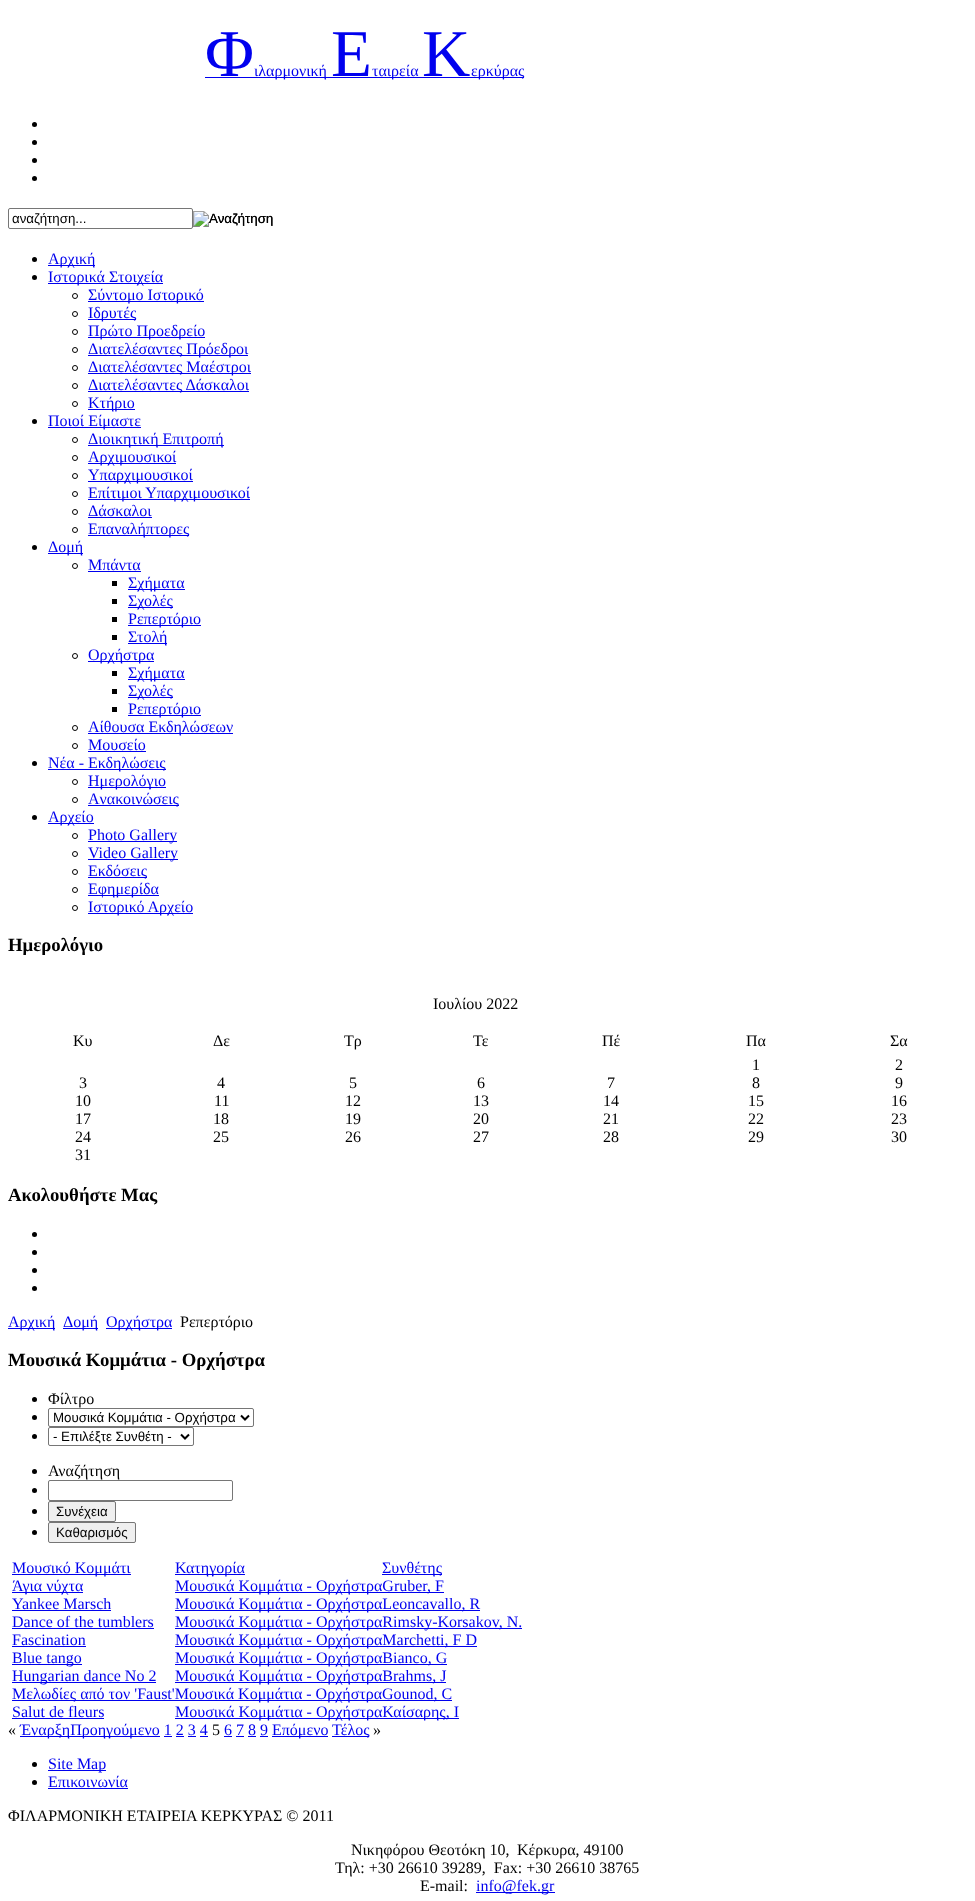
(async () => {
    const canvas = document.querySelector("canvas");
    canvas.width = 975;
    canvas.height = 1901;
    const context = canvas.getContext("2d");
    context.miterLimit = 4;
    context.fontKerning = "normal";
    function write(s, x, y, font, color) {
        context.font = font;
        context.fillStyle = color;
        context.fillText(s, x, y);
    }
    function block(x, y, w, h, color) {
        context.fillStyle = color;
        context.fillRect(x, y, w, h);
    }
    async function photo(src, x, y, w, h) {
        const img = new Image();
        img.src = src;
        await img.decode();
        context.drawImage(img, x, y, w, h);
    }

    block(0, 0, 975, 1901, "rgb(255, 255, 255)");
    write("Φ", 205, 76, "67px Liberation Serif", "rgb(0, 0, 238)");
    block(205, 77, 319, 1, "rgb(0, 0, 238)");
    write("ιλαρμονική", 254, 76, "16px Liberation Serif", "rgb(0, 0, 238)");
    write("Ε", 331, 76, "67px Liberation Serif", "rgb(0, 0, 238)");
    write("ταιρεία", 372, 76, "16px Liberation Serif", "rgb(0, 0, 238)");
    write("Κ", 422, 76, "67px Liberation Serif", "rgb(0, 0, 238)");
    write("ερκύρας", 471, 76, "16px Liberation Serif", "rgb(0, 0, 238)");
    context.fillStyle = "rgb(0, 0, 0)";
    context.beginPath();
    context.arc(34.5, 124.5, 2.5, 0, Math.PI * 2);
    context.fill();
    context.beginPath();
    context.arc(34.5, 142.5, 2.5, 0, Math.PI * 2);
    context.fill();
    context.beginPath();
    context.arc(34.5, 160.5, 2.5, 0, Math.PI * 2);
    context.fill();
    context.beginPath();
    context.arc(34.5, 178.5, 2.5, 0, Math.PI * 2);
    context.fill();
    context.beginPath();
    context.roundRect(8.5, 208.5, 184, 20, 1.5);
    context.strokeStyle = "rgb(118, 118, 118)";
    context.stroke();
    write("αναζήτηση...", 12, 223, "13.3px Liberation Sans", "rgb(0, 0, 0)");
    await photo("media/1.png", 193, 211, 80, 16);
    write("Αναζήτηση", 209, 223, "13.3px Liberation Sans", "rgb(0, 0, 0)");
    context.beginPath();
    context.arc(34.5, 259.5, 2.5, 0, Math.PI * 2);
    context.fill();
    block(48, 265, 47, 1, "rgb(0, 0, 238)");
    write("Αρχική", 48, 264, "16px Liberation Serif", "rgb(0, 0, 238)");
    context.fillStyle = "rgb(0, 0, 0)";
    context.beginPath();
    context.arc(34.5, 277.5, 2.5, 0, Math.PI * 2);
    context.fill();
    block(48, 283, 115, 1, "rgb(0, 0, 238)");
    write("Ιστορικά Στοιχεία", 48, 282, "16px Liberation Serif", "rgb(0, 0, 238)");
    context.beginPath();
    context.arc(75, 296, 2.5, 0, Math.PI * 2);
    context.strokeStyle = "rgb(0, 0, 0)";
    context.stroke();
    block(88, 301, 116, 1, "rgb(0, 0, 238)");
    write("Σύντομο Ιστορικό", 88, 300, "16px Liberation Serif", "rgb(0, 0, 238)");
    context.beginPath();
    context.arc(75, 314, 2.5, 0, Math.PI * 2);
    context.stroke();
    block(88, 319, 48, 1, "rgb(0, 0, 238)");
    write("Ιδρυτές", 88, 318, "16px Liberation Serif", "rgb(0, 0, 238)");
    context.beginPath();
    context.arc(75, 332, 2.5, 0, Math.PI * 2);
    context.stroke();
    block(88, 337, 117, 1, "rgb(0, 0, 238)");
    write("Πρώτο Προεδρείο", 88, 336, "16px Liberation Serif", "rgb(0, 0, 238)");
    context.beginPath();
    context.arc(75, 350, 2.5, 0, Math.PI * 2);
    context.stroke();
    block(88, 355, 160, 1, "rgb(0, 0, 238)");
    write("Διατελέσαντες Πρόεδροι", 88, 354, "16px Liberation Serif", "rgb(0, 0, 238)");
    context.beginPath();
    context.arc(75, 368, 2.5, 0, Math.PI * 2);
    context.stroke();
    block(88, 373, 163, 1, "rgb(0, 0, 238)");
    write("Διατελέσαντες Μαέστροι", 88, 372, "16px Liberation Serif", "rgb(0, 0, 238)");
    context.beginPath();
    context.arc(75, 386, 2.5, 0, Math.PI * 2);
    context.stroke();
    block(88, 391, 161, 1, "rgb(0, 0, 238)");
    write("Διατελέσαντες Δάσκαλοι", 88, 390, "16px Liberation Serif", "rgb(0, 0, 238)");
    context.beginPath();
    context.arc(75, 404, 2.5, 0, Math.PI * 2);
    context.stroke();
    block(88, 409, 47, 1, "rgb(0, 0, 238)");
    write("Κτήριο", 88, 408, "16px Liberation Serif", "rgb(0, 0, 238)");
    context.fillStyle = "rgb(0, 0, 0)";
    context.beginPath();
    context.arc(34.5, 421.5, 2.5, 0, Math.PI * 2);
    context.fill();
    block(48, 427, 93, 1, "rgb(0, 0, 238)");
    write("Ποιοί Είμαστε", 48, 426, "16px Liberation Serif", "rgb(0, 0, 238)");
    context.beginPath();
    context.arc(75, 440, 2.5, 0, Math.PI * 2);
    context.stroke();
    block(88, 445, 136, 1, "rgb(0, 0, 238)");
    write("Διοικητική Επιτροπή", 88, 444, "16px Liberation Serif", "rgb(0, 0, 238)");
    context.beginPath();
    context.arc(75, 458, 2.5, 0, Math.PI * 2);
    context.stroke();
    block(88, 463, 88, 1, "rgb(0, 0, 238)");
    write("Aρχιμουσικοί", 88, 462, "16px Liberation Serif", "rgb(0, 0, 238)");
    context.beginPath();
    context.arc(75, 476, 2.5, 0, Math.PI * 2);
    context.stroke();
    block(88, 481, 105, 1, "rgb(0, 0, 238)");
    write("Υπαρχιμουσικοί", 88, 480, "16px Liberation Serif", "rgb(0, 0, 238)");
    context.beginPath();
    context.arc(75, 494, 2.5, 0, Math.PI * 2);
    context.stroke();
    block(88, 499, 162, 1, "rgb(0, 0, 238)");
    write("Επίτιμοι Υπαρχιμουσικοί", 88, 498, "16px Liberation Serif", "rgb(0, 0, 238)");
    context.beginPath();
    context.arc(75, 512, 2.5, 0, Math.PI * 2);
    context.stroke();
    write("Δάσκαλοι", 88, 516, "16px Liberation Serif", "rgb(0, 0, 238)");
    block(88, 517, 64, 1, "rgb(0, 0, 238)");
    context.beginPath();
    context.arc(75, 530, 2.5, 0, Math.PI * 2);
    context.stroke();
    block(88, 535, 101, 1, "rgb(0, 0, 238)");
    write("Επαναλήπτορες", 88, 534, "16px Liberation Serif", "rgb(0, 0, 238)");
    context.fillStyle = "rgb(0, 0, 0)";
    context.beginPath();
    context.arc(34.5, 547.5, 2.5, 0, Math.PI * 2);
    context.fill();
    block(48, 553, 35, 1, "rgb(0, 0, 238)");
    write("Δομή", 48, 552, "16px Liberation Serif", "rgb(0, 0, 238)");
    context.beginPath();
    context.arc(75, 566, 2.5, 0, Math.PI * 2);
    context.stroke();
    write("Μπάντα", 88, 570, "16px Liberation Serif", "rgb(0, 0, 238)");
    block(88, 571, 53, 1, "rgb(0, 0, 238)");
    block(112, 581, 5, 5, "rgb(0, 0, 0)");
    block(128, 589, 57, 1, "rgb(0, 0, 238)");
    write("Σχήματα", 128, 588, "16px Liberation Serif", "rgb(0, 0, 238)");
    block(112, 599, 5, 5, "rgb(0, 0, 0)");
    block(128, 607, 45, 1, "rgb(0, 0, 238)");
    write("Σχολές", 128, 606, "16px Liberation Serif", "rgb(0, 0, 238)");
    block(112, 617, 5, 5, "rgb(0, 0, 0)");
    block(128, 625, 73, 1, "rgb(0, 0, 238)");
    write("Ρεπερτόριο", 128, 624, "16px Liberation Serif", "rgb(0, 0, 238)");
    block(112, 635, 5, 5, "rgb(0, 0, 0)");
    block(128, 643, 39, 1, "rgb(0, 0, 238)");
    write("Στολή", 128, 642, "16px Liberation Serif", "rgb(0, 0, 238)");
    context.beginPath();
    context.arc(75, 656, 2.5, 0, Math.PI * 2);
    context.stroke();
    block(88, 661, 66, 1, "rgb(0, 0, 238)");
    write("Ορχήστρα", 88, 660, "16px Liberation Serif", "rgb(0, 0, 238)");
    block(112, 671, 5, 5, "rgb(0, 0, 0)");
    block(128, 679, 57, 1, "rgb(0, 0, 238)");
    write("Σχήματα", 128, 678, "16px Liberation Serif", "rgb(0, 0, 238)");
    block(112, 689, 5, 5, "rgb(0, 0, 0)");
    block(128, 697, 45, 1, "rgb(0, 0, 238)");
    write("Σχολές", 128, 696, "16px Liberation Serif", "rgb(0, 0, 238)");
    block(112, 707, 5, 5, "rgb(0, 0, 0)");
    block(128, 715, 73, 1, "rgb(0, 0, 238)");
    write("Ρεπερτόριο", 128, 714, "16px Liberation Serif", "rgb(0, 0, 238)");
    context.beginPath();
    context.arc(75, 728, 2.5, 0, Math.PI * 2);
    context.stroke();
    block(88, 733, 145, 1, "rgb(0, 0, 238)");
    write("Aίθουσα Εκδηλώσεων", 88, 732, "16px Liberation Serif", "rgb(0, 0, 238)");
    context.beginPath();
    context.arc(75, 746, 2.5, 0, Math.PI * 2);
    context.stroke();
    write("Μουσείο", 88, 750, "16px Liberation Serif", "rgb(0, 0, 238)");
    block(88, 751, 58, 1, "rgb(0, 0, 238)");
    context.fillStyle = "rgb(0, 0, 0)";
    context.beginPath();
    context.arc(34.5, 763.5, 2.5, 0, Math.PI * 2);
    context.fill();
    block(48, 769, 118, 1, "rgb(0, 0, 238)");
    write("Νέα - Εκδηλώσεις", 48, 768, "16px Liberation Serif", "rgb(0, 0, 238)");
    context.beginPath();
    context.arc(75, 782, 2.5, 0, Math.PI * 2);
    context.stroke();
    block(88, 787, 78, 1, "rgb(0, 0, 238)");
    write("Ημερολόγιο", 88, 786, "16px Liberation Serif", "rgb(0, 0, 238)");
    context.beginPath();
    context.arc(75, 800, 2.5, 0, Math.PI * 2);
    context.stroke();
    block(88, 805, 91, 1, "rgb(0, 0, 238)");
    write("Aνακοινώσεις", 88, 804, "16px Liberation Serif", "rgb(0, 0, 238)");
    context.fillStyle = "rgb(0, 0, 0)";
    context.beginPath();
    context.arc(34.5, 817.5, 2.5, 0, Math.PI * 2);
    context.fill();
    block(48, 823, 46, 1, "rgb(0, 0, 238)");
    write("Αρχείο", 48, 822, "16px Liberation Serif", "rgb(0, 0, 238)");
    context.beginPath();
    context.arc(75, 836, 2.5, 0, Math.PI * 2);
    context.stroke();
    block(88, 841, 89, 1, "rgb(0, 0, 238)");
    write("Photo Gallery", 88, 840, "16px Liberation Serif", "rgb(0, 0, 238)");
    context.beginPath();
    context.arc(75, 854, 2.5, 0, Math.PI * 2);
    context.stroke();
    block(88, 859, 90, 1, "rgb(0, 0, 238)");
    write("Video Gallery", 88, 858, "16px Liberation Serif", "rgb(0, 0, 238)");
    context.beginPath();
    context.arc(75, 872, 2.5, 0, Math.PI * 2);
    context.stroke();
    block(88, 877, 59, 1, "rgb(0, 0, 238)");
    write("Εκδόσεις", 88, 876, "16px Liberation Serif", "rgb(0, 0, 238)");
    context.beginPath();
    context.arc(75, 890, 2.5, 0, Math.PI * 2);
    context.stroke();
    block(88, 895, 71, 1, "rgb(0, 0, 238)");
    write("Εφημερίδα", 88, 894, "16px Liberation Serif", "rgb(0, 0, 238)");
    context.beginPath();
    context.arc(75, 908, 2.5, 0, Math.PI * 2);
    context.stroke();
    block(88, 913, 105, 1, "rgb(0, 0, 238)");
    write("Ιστορικό Αρχείο", 88, 912, "16px Liberation Serif", "rgb(0, 0, 238)");
    write("Ημερολόγιο", 8, 951, "bold 18.75px Liberation Serif", "rgb(0, 0, 0)");
    write("Ιουλίου 2022", 433, 1009, "16px Liberation Serif", "rgb(0, 0, 0)");
    write("Κυ", 73, 1046, "16px Liberation Serif", "rgb(0, 0, 0)");
    write("Δε", 213, 1046, "16px Liberation Serif", "rgb(0, 0, 0)");
    write("Τρ", 344, 1046, "16px Liberation Serif", "rgb(0, 0, 0)");
    write("Τε", 473, 1046, "16px Liberation Serif", "rgb(0, 0, 0)");
    write("Πέ", 602, 1046, "16px Liberation Serif", "rgb(0, 0, 0)");
    write("Πα", 746, 1046, "16px Liberation Serif", "rgb(0, 0, 0)");
    write("Σα", 890, 1046, "16px Liberation Serif", "rgb(0, 0, 0)");
    write("1", 752, 1070, "16px Liberation Serif", "rgb(0, 0, 0)");
    write("2", 895, 1070, "16px Liberation Serif", "rgb(0, 0, 0)");
    write("3", 79, 1088, "16px Liberation Serif", "rgb(0, 0, 0)");
    write("4", 217, 1088, "16px Liberation Serif", "rgb(0, 0, 0)");
    write("5", 349, 1088, "16px Liberation Serif", "rgb(0, 0, 0)");
    write("6", 477, 1088, "16px Liberation Serif", "rgb(0, 0, 0)");
    write("7", 607, 1088, "16px Liberation Serif", "rgb(0, 0, 0)");
    write("8", 752, 1088, "16px Liberation Serif", "rgb(0, 0, 0)");
    write("9", 895, 1088, "16px Liberation Serif", "rgb(0, 0, 0)");
    write("10", 75, 1106, "16px Liberation Serif", "rgb(0, 0, 0)");
    write("11", 214, 1106, "16px Liberation Serif", "rgb(0, 0, 0)");
    write("12", 345, 1106, "16px Liberation Serif", "rgb(0, 0, 0)");
    write("13", 473, 1106, "16px Liberation Serif", "rgb(0, 0, 0)");
    write("14", 603, 1106, "16px Liberation Serif", "rgb(0, 0, 0)");
    write("15", 748, 1106, "16px Liberation Serif", "rgb(0, 0, 0)");
    write("16", 891, 1106, "16px Liberation Serif", "rgb(0, 0, 0)");
    write("17", 75, 1124, "16px Liberation Serif", "rgb(0, 0, 0)");
    write("18", 213, 1124, "16px Liberation Serif", "rgb(0, 0, 0)");
    write("19", 345, 1124, "16px Liberation Serif", "rgb(0, 0, 0)");
    write("20", 473, 1124, "16px Liberation Serif", "rgb(0, 0, 0)");
    write("21", 603, 1124, "16px Liberation Serif", "rgb(0, 0, 0)");
    write("22", 748, 1124, "16px Liberation Serif", "rgb(0, 0, 0)");
    write("23", 891, 1124, "16px Liberation Serif", "rgb(0, 0, 0)");
    write("24", 75, 1142, "16px Liberation Serif", "rgb(0, 0, 0)");
    write("25", 213, 1142, "16px Liberation Serif", "rgb(0, 0, 0)");
    write("26", 345, 1142, "16px Liberation Serif", "rgb(0, 0, 0)");
    write("27", 473, 1142, "16px Liberation Serif", "rgb(0, 0, 0)");
    write("28", 603, 1142, "16px Liberation Serif", "rgb(0, 0, 0)");
    write("29", 748, 1142, "16px Liberation Serif", "rgb(0, 0, 0)");
    write("30", 891, 1142, "16px Liberation Serif", "rgb(0, 0, 0)");
    write("31", 75, 1160, "16px Liberation Serif", "rgb(0, 0, 0)");
    write("Ακολουθήστε Μας", 8, 1201, "bold 18.75px Liberation Serif", "rgb(0, 0, 0)");
    context.beginPath();
    context.arc(34.5, 1234.5, 2.5, 0, Math.PI * 2);
    context.fill();
    context.beginPath();
    context.arc(34.5, 1252.5, 2.5, 0, Math.PI * 2);
    context.fill();
    context.beginPath();
    context.arc(34.5, 1270.5, 2.5, 0, Math.PI * 2);
    context.fill();
    context.beginPath();
    context.arc(34.5, 1288.5, 2.5, 0, Math.PI * 2);
    context.fill();
    block(8, 1328, 47, 1, "rgb(0, 0, 238)");
    write("Αρχική", 8, 1327, "16px Liberation Serif", "rgb(0, 0, 238)");
    block(63, 1328, 35, 1, "rgb(0, 0, 238)");
    write("Δομή", 63, 1327, "16px Liberation Serif", "rgb(0, 0, 238)");
    block(106, 1328, 66, 1, "rgb(0, 0, 238)");
    write("Ορχήστρα", 106, 1327, "16px Liberation Serif", "rgb(0, 0, 238)");
    write("Ρεπερτόριο", 180, 1327, "16px Liberation Serif", "rgb(0, 0, 0)");
    write("Μουσικά Κομμάτια - Ορχήστρα", 8, 1366, "bold 18.75px Liberation Serif", "rgb(0, 0, 0)");
    context.beginPath();
    context.arc(34.5, 1399.5, 2.5, 0, Math.PI * 2);
    context.fill();
    write("Φίλτρο", 48, 1404, "16px Liberation Serif", "rgb(0, 0, 0)");
    context.beginPath();
    context.arc(34.5, 1417.5, 2.5, 0, Math.PI * 2);
    context.fill();
    context.beginPath();
    context.roundRect(48.5, 1408.5, 205, 18, 1.5);
    context.strokeStyle = "rgb(118, 118, 118)";
    context.stroke();
    context.beginPath();
    context.moveTo(241, 1415.5);
    context.lineTo(245, 1419.5);
    context.lineTo(249, 1415.5);
    context.strokeStyle = "rgb(0, 0, 0)";
    context.lineWidth = 2;
    context.stroke();
    write("Μουσικά Κομμάτια - Ορχήστρα", 53, 1422, "13.3px Liberation Sans", "rgb(0, 0, 0)");
    context.beginPath();
    context.arc(34.5, 1436.5, 2.5, 0, Math.PI * 2);
    context.fill();
    context.beginPath();
    context.roundRect(48.5, 1427.5, 145, 18, 1.5);
    context.strokeStyle = "rgb(118, 118, 118)";
    context.lineWidth = 1;
    context.stroke();
    context.beginPath();
    context.moveTo(181, 1434.5);
    context.lineTo(185, 1438.5);
    context.lineTo(189, 1434.5);
    context.strokeStyle = "rgb(0, 0, 0)";
    context.lineWidth = 2;
    context.stroke();
    write("- Επιλέξτε Συνθέτη -", 53, 1441, "13.3px Liberation Sans", "rgb(0, 0, 0)");
    context.beginPath();
    context.arc(34.5, 1471.5, 2.5, 0, Math.PI * 2);
    context.fill();
    write("Αναζήτηση", 48, 1476, "16px Liberation Serif", "rgb(0, 0, 0)");
    context.beginPath();
    context.arc(34.5, 1490.5, 2.5, 0, Math.PI * 2);
    context.fill();
    context.beginPath();
    context.roundRect(48.5, 1480.5, 184, 20, 1.5);
    context.strokeStyle = "rgb(118, 118, 118)";
    context.lineWidth = 1;
    context.stroke();
    context.beginPath();
    context.arc(34.5, 1511.5, 2.5, 0, Math.PI * 2);
    context.fill();
    context.fillStyle = "rgb(239, 239, 239)";
    context.beginPath();
    context.roundRect(48.5, 1501.5, 67, 20, 1.5);
    context.fill();
    context.stroke();
    write("Συνέχεια", 56, 1516, "13.3px Liberation Sans", "rgb(0, 0, 0)");
    context.beginPath();
    context.arc(34.5, 1532.5, 2.5, 0, Math.PI * 2);
    context.fill();
    context.fillStyle = "rgb(239, 239, 239)";
    context.beginPath();
    context.roundRect(48.5, 1522.5, 87, 20, 1.5);
    context.fill();
    context.stroke();
    write("Καθαρισμός", 56, 1537, "13.3px Liberation Sans", "rgb(0, 0, 0)");
    block(12, 1574, 119, 1, "rgb(0, 0, 238)");
    write("Μουσικό Κομμάτι", 12, 1573, "16px Liberation Serif", "rgb(0, 0, 238)");
    block(175, 1574, 70, 1, "rgb(0, 0, 238)");
    write("Κατηγορία", 175, 1573, "16px Liberation Serif", "rgb(0, 0, 238)");
    block(382, 1574, 60, 1, "rgb(0, 0, 238)");
    write("Συνθέτης", 382, 1573, "16px Liberation Serif", "rgb(0, 0, 238)");
    block(12, 1592, 71, 1, "rgb(0, 0, 238)");
    write("Άγια νύχτα", 12, 1591, "16px Liberation Serif", "rgb(0, 0, 238)");
    block(175, 1592, 269, 1, "rgb(0, 0, 238)");
    write("Μουσικά Κομμάτια - ΟρχήστραGruber, F", 175, 1591, "16px Liberation Serif", "rgb(0, 0, 238)");
    write("Yankee Marsch", 12, 1609, "16px Liberation Serif", "rgb(0, 0, 238)");
    block(12, 1610, 99, 1, "rgb(0, 0, 238)");
    block(175, 1610, 305, 1, "rgb(0, 0, 238)");
    write("Μουσικά Κομμάτια - ΟρχήστραLeoncavallo, R", 175, 1609, "16px Liberation Serif", "rgb(0, 0, 238)");
    write("Dance of the tumblers", 12, 1627, "16px Liberation Serif", "rgb(0, 0, 238)");
    block(12, 1628, 142, 1, "rgb(0, 0, 238)");
    block(175, 1628, 347, 1, "rgb(0, 0, 238)");
    write("Μουσικά Κομμάτια - ΟρχήστραRimsky-Korsakov, N.", 175, 1627, "16px Liberation Serif", "rgb(0, 0, 238)");
    write("Fascination", 12, 1645, "16px Liberation Serif", "rgb(0, 0, 238)");
    block(12, 1646, 74, 1, "rgb(0, 0, 238)");
    block(175, 1646, 302, 1, "rgb(0, 0, 238)");
    write("Μουσικά Κομμάτια - ΟρχήστραMarchetti, F D", 175, 1645, "16px Liberation Serif", "rgb(0, 0, 238)");
    block(12, 1664, 70, 1, "rgb(0, 0, 238)");
    write("Blue tango", 12, 1663, "16px Liberation Serif", "rgb(0, 0, 238)");
    block(175, 1664, 272, 1, "rgb(0, 0, 238)");
    write("Μουσικά Κομμάτια - ΟρχήστραBianco, G", 175, 1663, "16px Liberation Serif", "rgb(0, 0, 238)");
    block(12, 1682, 144, 1, "rgb(0, 0, 238)");
    write("Hungarian dance No 2", 12, 1681, "16px Liberation Serif", "rgb(0, 0, 238)");
    block(175, 1682, 271, 1, "rgb(0, 0, 238)");
    write("Μουσικά Κομμάτια - ΟρχήστραBrahms, J", 175, 1681, "16px Liberation Serif", "rgb(0, 0, 238)");
    block(12, 1700, 440, 1, "rgb(0, 0, 238)");
    write("Μελωδίες από τον 'Faust'Μουσικά Κομμάτια - ΟρχήστραGounod, C", 12, 1699, "16px Liberation Serif", "rgb(0, 0, 238)");
    write("Salut de fleurs", 12, 1717, "16px Liberation Serif", "rgb(0, 0, 238)");
    block(12, 1718, 92, 1, "rgb(0, 0, 238)");
    block(175, 1718, 284, 1, "rgb(0, 0, 238)");
    write("Μουσικά Κομμάτια - ΟρχήστραΚαίσαρης, Ι", 175, 1717, "16px Liberation Serif", "rgb(0, 0, 238)");
    write("«", 8, 1735, "16px Liberation Serif", "rgb(0, 0, 0)");
    block(20, 1736, 140, 1, "rgb(0, 0, 238)");
    write("ΈναρξηΠροηγούμενο 1 2 3 4", 20, 1735, "16px Liberation Serif", "rgb(0, 0, 238)");
    write("5", 212, 1735, "16px Liberation Serif", "rgb(0, 0, 0)");
    write("6 7 8 9", 224, 1735, "16px Liberation Serif", "rgb(0, 0, 238)");
    block(224, 1736, 8, 1, "rgb(0, 0, 238)");
    block(272, 1736, 56, 1, "rgb(0, 0, 238)");
    write("Επόμενο", 272, 1735, "16px Liberation Serif", "rgb(0, 0, 238)");
    block(332, 1736, 37, 1, "rgb(0, 0, 238)");
    write("Τέλος", 332, 1735, "16px Liberation Serif", "rgb(0, 0, 238)");
    write("»", 373, 1735, "16px Liberation Serif", "rgb(0, 0, 0)");
    block(164, 1736, 8, 1, "rgb(0, 0, 238)");
    block(176, 1736, 8, 1, "rgb(0, 0, 238)");
    block(188, 1736, 8, 1, "rgb(0, 0, 238)");
    block(200, 1736, 8, 1, "rgb(0, 0, 238)");
    block(236, 1736, 8, 1, "rgb(0, 0, 238)");
    block(248, 1736, 8, 1, "rgb(0, 0, 238)");
    block(260, 1736, 8, 1, "rgb(0, 0, 238)");
    context.fillStyle = "rgb(0, 0, 0)";
    context.beginPath();
    context.arc(34.5, 1764.5, 2.5, 0, Math.PI * 2);
    context.fill();
    block(48, 1770, 58, 1, "rgb(0, 0, 238)");
    write("Site Map", 48, 1769, "16px Liberation Serif", "rgb(0, 0, 238)");
    context.fillStyle = "rgb(0, 0, 0)";
    context.beginPath();
    context.arc(34.5, 1782.5, 2.5, 0, Math.PI * 2);
    context.fill();
    write("Επικοινωνία", 48, 1787, "16px Liberation Serif", "rgb(0, 0, 238)");
    block(48, 1788, 80, 1, "rgb(0, 0, 238)");
    write("ΦΙΛΑΡΜΟΝΙΚΗ ΕΤΑΙΡΕΙΑ ΚΕΡΚΥΡΑΣ © 2011", 8, 1821, "16px Liberation Serif", "rgb(0, 0, 0)");
    write("Νικηφόρου Θεοτόκη 10,", 351, 1855, "16px Liberation Serif", "rgb(0, 0, 0)");
    write("Κέρκυρα, 49100", 517, 1855, "16px Liberation Serif", "rgb(0, 0, 0)");
    write("Τηλ: +30 26610 39289,  Fax: +30 26610 38765", 335, 1873, "16px Liberation Serif", "rgb(0, 0, 0)");
    write("E-mail:", 420, 1891, "16px Liberation Serif", "rgb(0, 0, 0)");
    block(476, 1892, 79, 1, "rgb(0, 0, 238)");
    write("info@fek.gr", 476, 1891, "16px Liberation Serif", "rgb(0, 0, 238)");
})();
